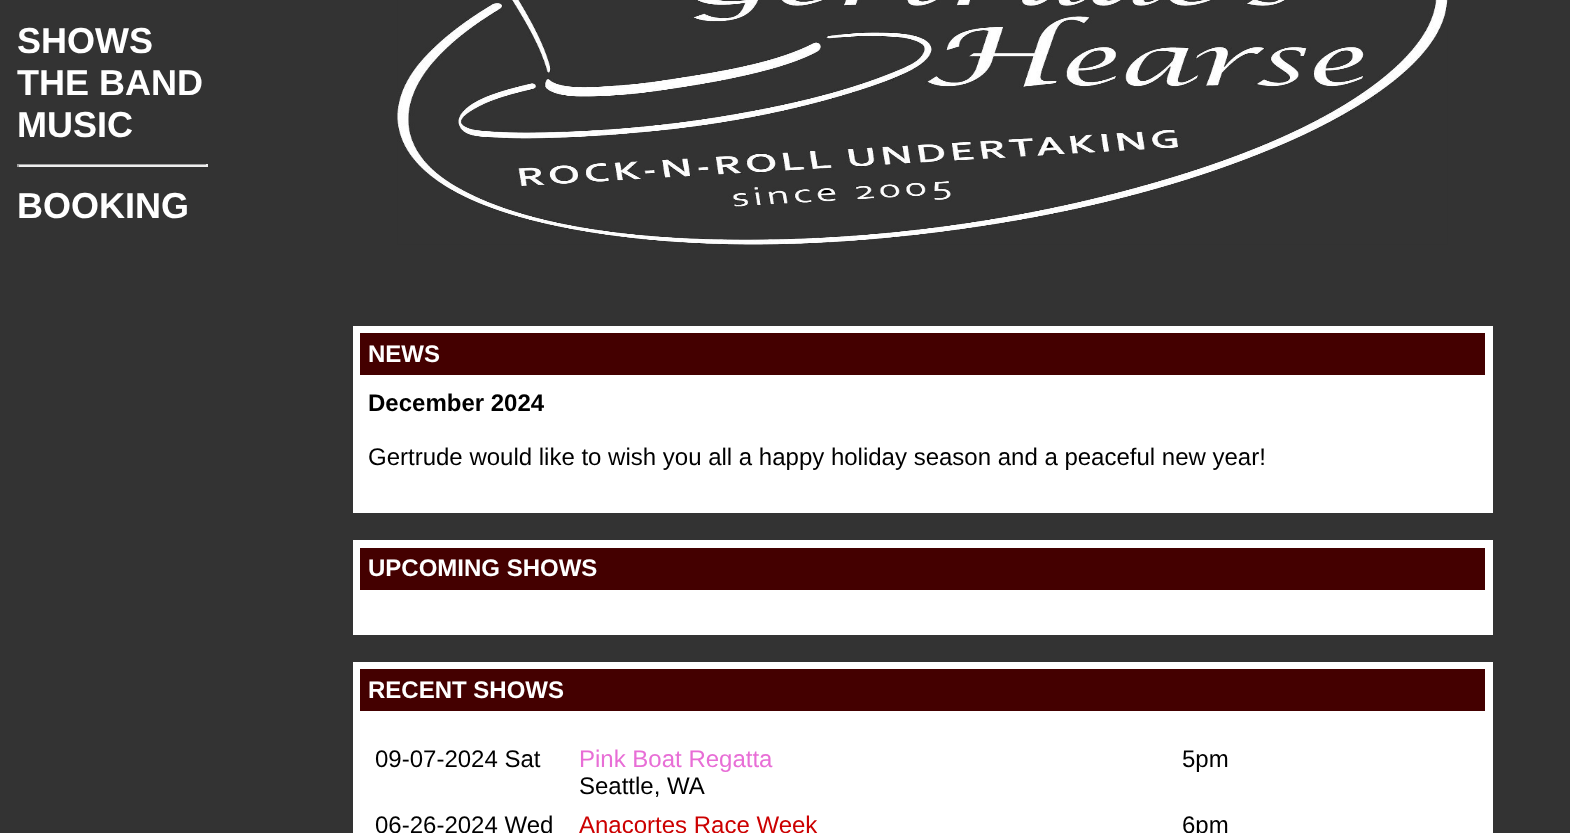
(async () => {
    const canvas = document.querySelector("canvas");
    canvas.width = 1570;
    canvas.height = 833;
    const context = canvas.getContext("2d");
    context.miterLimit = 4;
    context.fontKerning = "normal";
    function write(s, x, y, font, color) {
        context.font = font;
        context.fillStyle = color;
        context.fillText(s, x, y);
    }
    function block(x, y, w, h, color) {
        context.fillStyle = color;
        context.fillRect(x, y, w, h);
    }
    async function photo(src, x, y, w, h) {
        const img = new Image();
        img.src = src;
        await img.decode();
        context.drawImage(img, x, y, w, h);
    }

    block(0, 0, 1570, 833, "rgb(51, 51, 51)");
    write("SHOWS", 17, 53, "bold 36px Liberation Sans", "rgb(255, 255, 255)");
    write("THE BAND", 17, 95, "bold 36px Liberation Sans", "rgb(255, 255, 255)");
    write("MUSIC", 17, 137, "bold 36px Liberation Sans", "rgb(255, 255, 255)");
    block(17, 164, 190, 1, "rgb(159, 159, 159)");
    block(206, 164, 2, 3, "rgb(238, 238, 238)");
    block(17, 165, 190, 2, "rgb(238, 238, 238)");
    block(17, 164, 2, 3, "rgb(159, 159, 159)");
    write("BOOKING", 17, 218, "bold 36px Liberation Sans", "rgb(255, 255, 255)");
    await photo("media/1.png", 397, 0, 1051, 245);
    block(353, 326, 1140, 187, "rgb(255, 255, 255)");
    block(360, 333, 1125, 42, "rgb(68, 0, 0)");
    write("NEWS", 368, 362, "bold 24px Liberation Sans", "rgb(255, 255, 255)");
    write("December 2024", 368, 411, "bold 24px Liberation Sans", "rgb(0, 0, 0)");
    write("Gertrude would like to wish you all a happy holiday season and a peaceful new year!", 368, 465, "24px Liberation Sans", "rgb(0, 0, 0)");
    block(353, 540, 1140, 95, "rgb(255, 255, 255)");
    block(360, 548, 1125, 42, "rgb(68, 0, 0)");
    write("UPCOMING SHOWS", 368, 576, "bold 24px Liberation Sans", "rgb(255, 255, 255)");
    block(353, 662, 1140, 171, "rgb(255, 255, 255)");
    block(360, 669, 1125, 42, "rgb(68, 0, 0)");
    write("RECENT SHOWS", 368, 698, "bold 24px Liberation Sans", "rgb(255, 255, 255)");
    write("09-07-2024 Sat", 375, 767, "24px Liberation Sans", "rgb(0, 0, 0)");
    write("Pink Boat Regatta", 579, 767, "24px Liberation Sans", "rgb(232, 110, 214)");
    write("Seattle, WA", 579, 794, "24px Liberation Sans", "rgb(0, 0, 0)");
    write("5pm", 1182, 767, "24px Liberation Sans", "rgb(0, 0, 0)");
    write("06-26-2024 Wed", 375, 833, "24px Liberation Sans", "rgb(0, 0, 0)");
    write("Anacortes Race Week", 579, 833, "24px Liberation Sans", "rgb(204, 0, 0)");
    write("6pm", 1182, 833, "24px Liberation Sans", "rgb(0, 0, 0)");
})();
